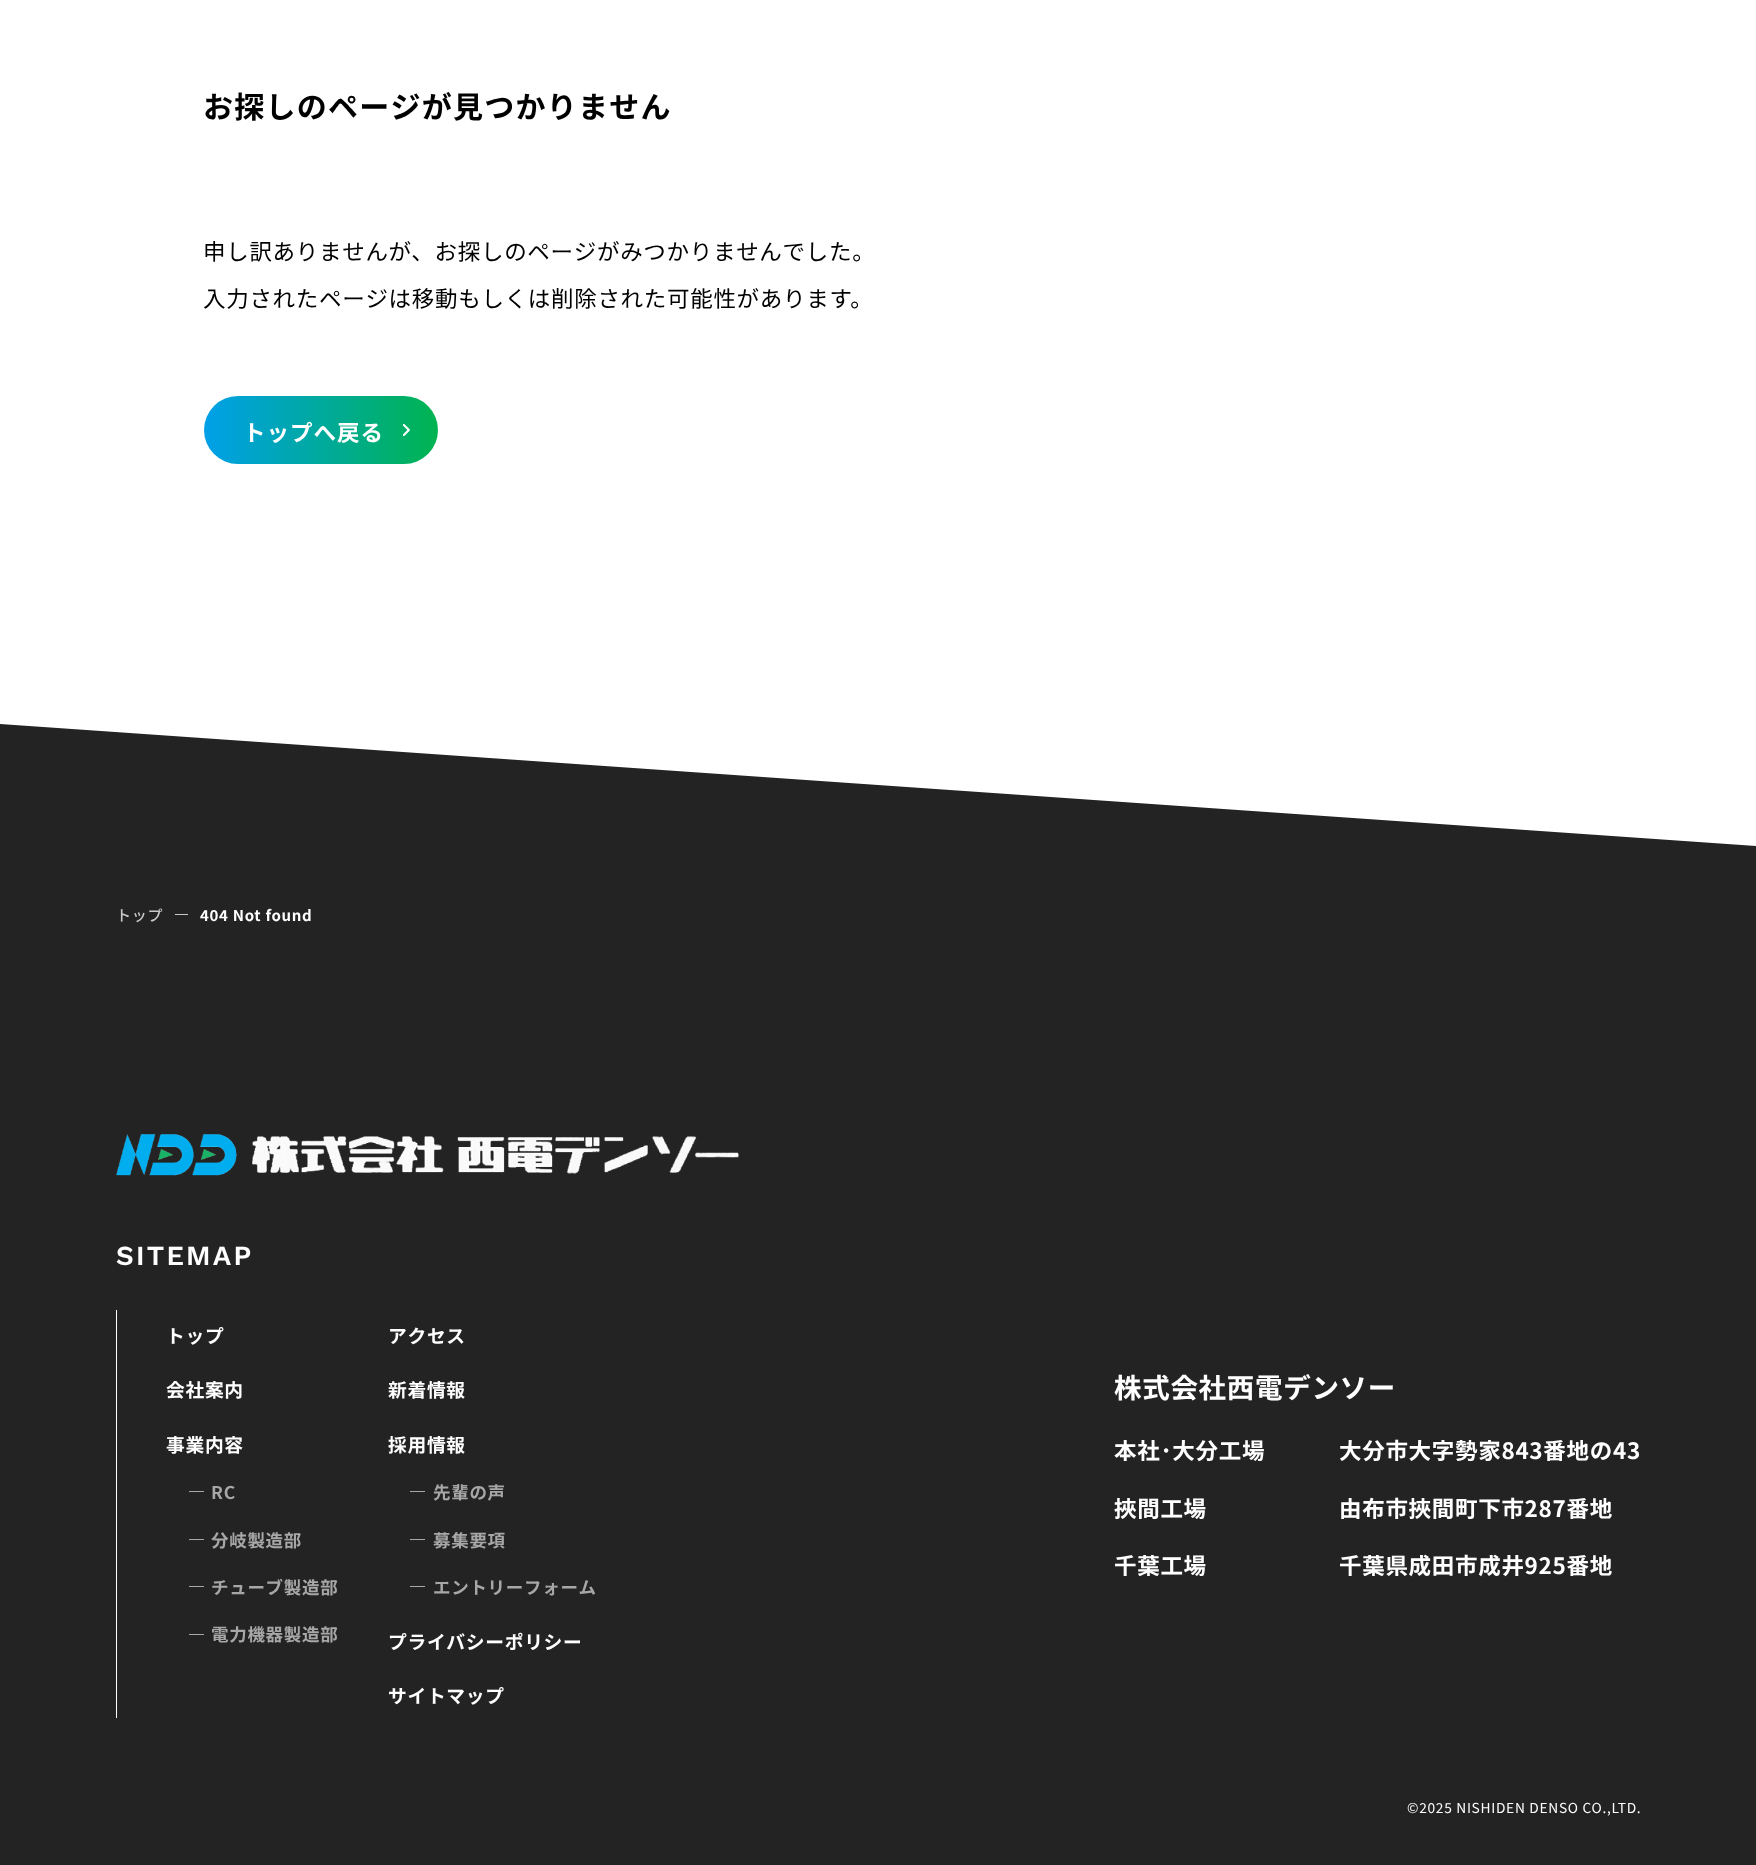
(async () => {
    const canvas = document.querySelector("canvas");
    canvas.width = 1756;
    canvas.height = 1865;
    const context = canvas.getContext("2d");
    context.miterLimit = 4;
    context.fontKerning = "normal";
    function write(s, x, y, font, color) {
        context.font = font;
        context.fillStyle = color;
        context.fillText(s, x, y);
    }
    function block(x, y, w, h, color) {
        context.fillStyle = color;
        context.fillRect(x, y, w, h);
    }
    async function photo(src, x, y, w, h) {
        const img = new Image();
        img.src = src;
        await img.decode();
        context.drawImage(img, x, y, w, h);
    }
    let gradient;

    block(0, 0, 1756, 1865, "rgb(255, 255, 255)");
    context.letterSpacing = "1.25px";
    write("お探しのページが見つかりません", 203, 118, "bold 30px Noto Sans JP", "rgb(0, 0, 0)");
    context.letterSpacing = "0.7px";
    write("申し訳ありませんが、お探しのページがみつかりませんでした。", 203, 260, "22.5px Noto Sans JP", "rgb(0, 0, 0)");
    write("入力されたページは移動もしくは削除された可能性があります。", 203, 307, "22.5px Noto Sans JP", "rgb(0, 0, 0)");
    gradient = context.createLinearGradient(204, 430, 438, 430);
    gradient.addColorStop(0, "rgb(0, 160, 233)");
    gradient.addColorStop(1, "rgb(0, 179, 80)");
    context.fillStyle = gradient;
    context.beginPath();
    context.roundRect(204, 396, 234, 68, 34);
    context.fill();
    context.letterSpacing = "1px";
    write("トップへ戻る", 243, 441, "bold 22.5px Noto Sans JP", "rgb(255, 255, 255)");
    await photo("media/1.png", 403, 424, 7, 12);
    block(0, 1772, 1328, 93, "rgb(35, 35, 35)");
    context.beginPath();
    context.moveTo(0, 724);
    context.lineTo(1756, 846);
    context.lineTo(1756, 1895);
    context.lineTo(0, 1772);
    context.closePath();
    context.fill();
    context.letterSpacing = "0.7px";
    write("トップ", 116, 921, "500 15px Noto Sans JP", "rgb(200, 200, 200)");
    block(175, 914, 13, 1, "rgb(200, 200, 200)");
    write("404 Not found", 200, 921, "bold 15px Noto Sans JP", "rgb(255, 255, 255)");
    await photo("media/2.png", 116, 1134, 623, 42);
    context.letterSpacing = "2.25px";
    write("SITEMAP", 116, 1265, "600 27.5px Work Sans", "rgb(255, 255, 255)");
    block(116, 1310, 1, 408, "rgb(255, 255, 255)");
    context.letterSpacing = "0.7px";
    write("トップ", 166, 1343, "bold 18.75px Noto Sans JP", "rgb(255, 255, 255)");
    write("会社案内", 166, 1397, "bold 18.75px Noto Sans JP", "rgb(255, 255, 255)");
    write("事業内容", 166, 1452, "bold 18.75px Noto Sans JP", "rgb(255, 255, 255)");
    block(189, 1491, 15, 1, "rgb(167, 167, 167)");
    write("RC", 211, 1499, "bold 17.5px Noto Sans JP", "rgb(167, 167, 167)");
    block(189, 1539, 15, 1, "rgb(167, 167, 167)");
    write("分岐製造部", 211, 1547, "bold 17.5px Noto Sans JP", "rgb(167, 167, 167)");
    block(189, 1586, 15, 1, "rgb(167, 167, 167)");
    write("チューブ製造部", 211, 1594, "bold 17.5px Noto Sans JP", "rgb(167, 167, 167)");
    block(189, 1634, 15, 1, "rgb(167, 167, 167)");
    write("電力機器製造部", 211, 1641, "bold 17.5px Noto Sans JP", "rgb(167, 167, 167)");
    write("アクセス", 388, 1343, "bold 18.75px Noto Sans JP", "rgb(255, 255, 255)");
    write("新着情報", 388, 1397, "bold 18.75px Noto Sans JP", "rgb(255, 255, 255)");
    write("採用情報", 388, 1452, "bold 18.75px Noto Sans JP", "rgb(255, 255, 255)");
    block(410, 1491, 15, 1, "rgb(167, 167, 167)");
    write("先輩の声", 433, 1499, "bold 17.5px Noto Sans JP", "rgb(167, 167, 167)");
    block(410, 1539, 15, 1, "rgb(167, 167, 167)");
    write("募集要項", 433, 1547, "bold 17.5px Noto Sans JP", "rgb(167, 167, 167)");
    block(410, 1586, 15, 1, "rgb(167, 167, 167)");
    write("エントリーフォーム", 433, 1594, "bold 17.5px Noto Sans JP", "rgb(167, 167, 167)");
    write("プライバシーポリシー", 388, 1649, "bold 18.75px Noto Sans JP", "rgb(255, 255, 255)");
    write("サイトマップ", 388, 1703, "bold 18.75px Noto Sans JP", "rgb(255, 255, 255)");
    write("株式会社西電デンソー", 1114, 1398, "bold 27.5px Noto Sans JP", "rgb(255, 255, 255)");
    write("本社･大分工場", 1114, 1459, "bold 22.5px Noto Sans JP", "rgb(255, 255, 255)");
    write("大分市大字勢家843番地の43", 1339, 1459, "bold 22.5px Noto Sans JP", "rgb(255, 255, 255)");
    write("挾間工場", 1114, 1517, "bold 22.5px Noto Sans JP", "rgb(255, 255, 255)");
    write("由布市挾間町下市287番地", 1339, 1517, "bold 22.5px Noto Sans JP", "rgb(255, 255, 255)");
    write("千葉工場", 1114, 1574, "bold 22.5px Noto Sans JP", "rgb(255, 255, 255)");
    write("千葉県成田市成井925番地", 1339, 1574, "bold 22.5px Noto Sans JP", "rgb(255, 255, 255)");
    write("©2025 NISHIDEN DENSO CO.,LTD.", 1407, 1813, "13.75px Noto Sans JP", "rgb(255, 255, 255)");
})();
